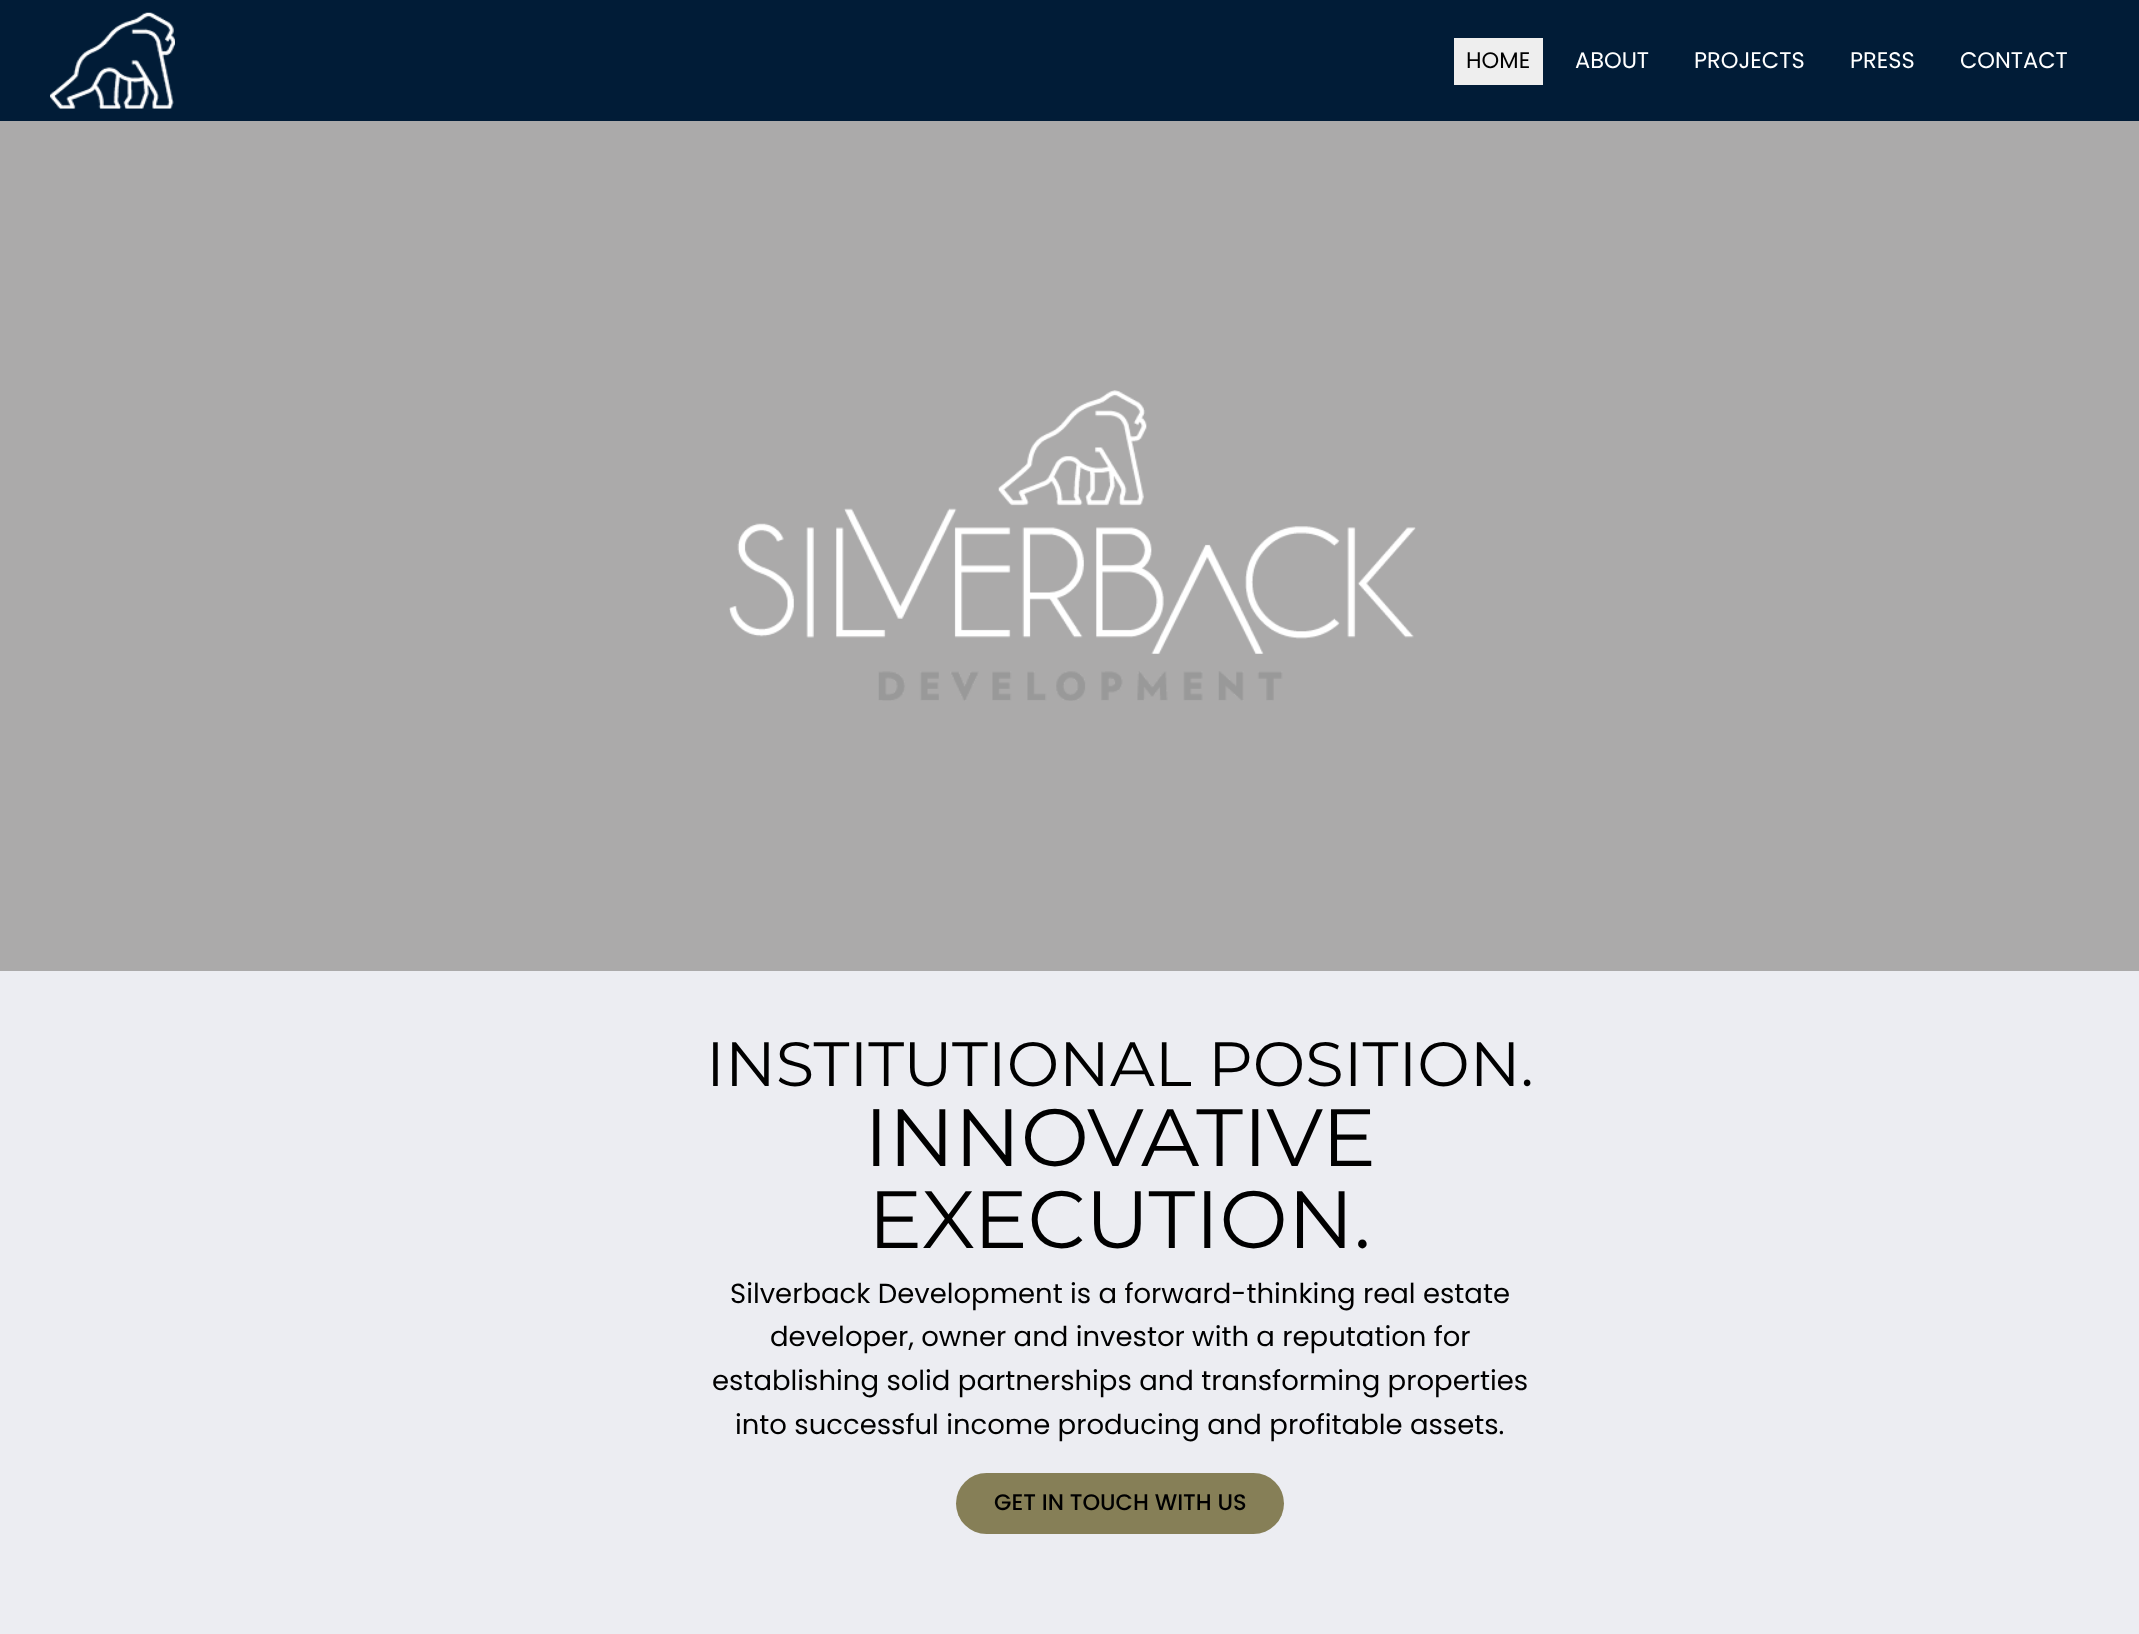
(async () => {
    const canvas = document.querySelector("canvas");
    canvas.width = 2139;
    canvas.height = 1634;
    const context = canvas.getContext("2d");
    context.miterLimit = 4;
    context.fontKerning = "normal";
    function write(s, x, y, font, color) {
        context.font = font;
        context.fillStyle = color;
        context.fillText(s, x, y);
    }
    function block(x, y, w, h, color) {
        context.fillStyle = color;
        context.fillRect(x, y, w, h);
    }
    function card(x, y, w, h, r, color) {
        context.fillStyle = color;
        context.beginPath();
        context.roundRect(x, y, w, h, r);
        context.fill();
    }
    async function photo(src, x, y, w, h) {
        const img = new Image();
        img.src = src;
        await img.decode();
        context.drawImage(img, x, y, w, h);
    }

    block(0, 0, 2139, 1634, "rgb(1, 28, 55)");
    await photo("media/1.png", 50, 12, 125, 97);
    block(1454, 38, 89, 47, "rgb(238, 238, 238)");
    write("HOME", 1466, 68, "22.5px Poppins", "rgb(0, 0, 0)");
    write("ABOUT", 1575, 68, "22.5px Poppins", "rgb(255, 255, 255)");
    write("PROJECTS", 1694, 68, "22.5px Poppins", "rgb(255, 255, 255)");
    write("PRESS", 1850, 68, "22.5px Poppins", "rgb(255, 255, 255)");
    write("CONTACT", 1960, 68, "22.5px Poppins", "rgb(255, 255, 255)");
    block(0, 121, 2139, 850, "rgb(171, 170, 170)");
    await photo("media/2.png", 729, 390, 687, 311);
    block(0, 971, 2139, 663, "rgb(236, 237, 242)");
    write("INSTITUTIONAL POSITION.", 706, 1086, "100 62.5px Montserrat", "rgb(0, 0, 0)");
    write("INNOVATIVE", 864, 1166, "100 81.25px Montserrat", "rgb(0, 0, 0)");
    write("EXECUTION.", 868, 1248, "100 81.25px Montserrat", "rgb(0, 0, 0)");
    write("Silverback Development is a forward-thinking real estate", 730, 1303, "27.5px Poppins", "rgb(0, 0, 0)");
    write("developer, owner and investor with a reputation for", 770, 1346, "27.5px Poppins", "rgb(0, 0, 0)");
    write("establishing solid partnerships and transforming properties", 712, 1390, "27.5px Poppins", "rgb(0, 0, 0)");
    write("into successful income producing and profitable assets.", 735, 1434, "27.5px Poppins", "rgb(0, 0, 0)");
    card(956, 1473, 328, 61, 30.5, "rgb(134, 127, 87)");
    write("GET IN TOUCH WITH US", 994, 1510, "500 22.5px Poppins", "rgb(0, 0, 0)");
})();
